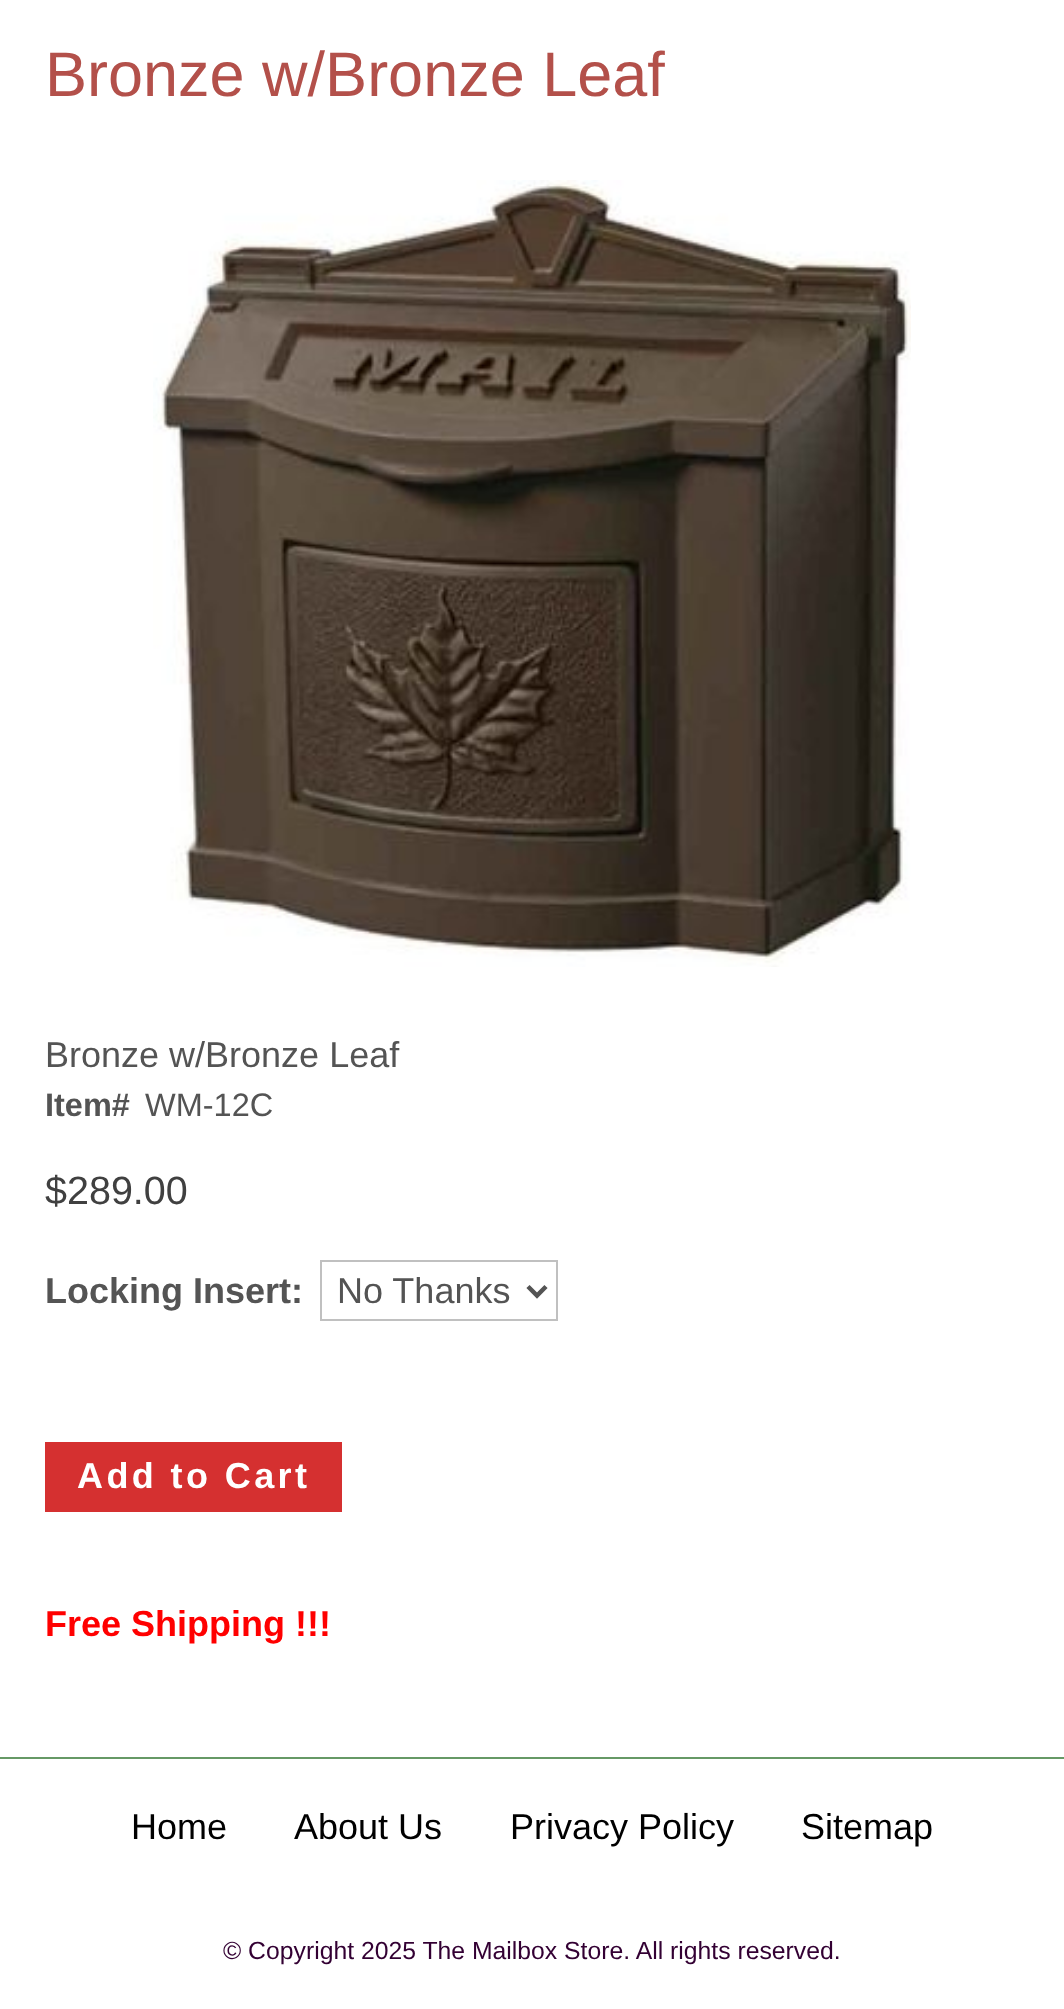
(async () => {
    const canvas = document.querySelector("canvas");
    canvas.width = 1064;
    canvas.height = 2009;
    const context = canvas.getContext("2d");
    context.miterLimit = 4;
    context.fontKerning = "normal";
    function write(s, x, y, font, color) {
        context.font = font;
        context.fillStyle = color;
        context.fillText(s, x, y);
    }
    function block(x, y, w, h, color) {
        context.fillStyle = color;
        context.fillRect(x, y, w, h);
    }
    async function photo(src, x, y, w, h) {
        const img = new Image();
        img.src = src;
        await img.decode();
        context.drawImage(img, x, y, w, h);
    }

    block(0, 0, 1064, 2009, "rgb(255, 255, 255)");
    write("Bronze w/Bronze Leaf", 45, 96, "63px Liberation Sans", "rgb(179, 80, 74)");
    await photo("media/1.png", 153, 180, 758, 787);
    write("Bronze w/Bronze Leaf", 45, 1067, "36px Liberation Sans", "rgb(84, 84, 84)");
    write("Item#", 45, 1116, "bold 32.5px Liberation Sans", "rgb(84, 84, 84)");
    write("WM-12C", 145, 1116, "32.5px Liberation Sans", "rgb(84, 84, 84)");
    write("$289.00", 45, 1204, "39.5px Liberation Sans", "rgb(64, 64, 64)");
    write("Locking Insert:", 45, 1303, "bold 36px Liberation Sans", "rgb(84, 84, 84)");
    context.strokeStyle = "rgb(192, 192, 192)";
    context.lineWidth = 2;
    context.strokeRect(321, 1261, 236, 59);
    context.beginPath();
    context.moveTo(528, 1286.5);
    context.lineTo(537, 1295.5);
    context.lineTo(546, 1286.5);
    context.strokeStyle = "rgb(84, 84, 84)";
    context.lineWidth = 4.5;
    context.stroke();
    write("No Thanks", 337, 1303, "36px Liberation Sans", "rgb(84, 84, 84)");
    block(45, 1442, 297, 70, "rgb(213, 48, 48)");
    context.letterSpacing = "3.4px";
    write("Add to Cart", 77, 1488, "bold 36px Liberation Sans", "rgb(255, 255, 255)");
    context.letterSpacing = "0px";
    write("Free Shipping !!!", 45, 1636, "bold 36px Liberation Sans", "rgb(255, 0, 0)");
    block(0, 1757, 1064, 2, "rgb(102, 153, 102)");
    write("Home", 131, 1839, "36px Liberation Sans", "rgb(0, 0, 0)");
    write("About Us", 294, 1839, "36px Liberation Sans", "rgb(0, 0, 0)");
    write("Privacy Policy", 510, 1839, "36px Liberation Sans", "rgb(0, 0, 0)");
    write("Sitemap", 801, 1839, "36px Liberation Sans", "rgb(0, 0, 0)");
    write("© Copyright 2025 The Mailbox Store. All rights reserved.", 223, 1959, "24.75px Liberation Sans", "rgb(51, 0, 51)");
})();
